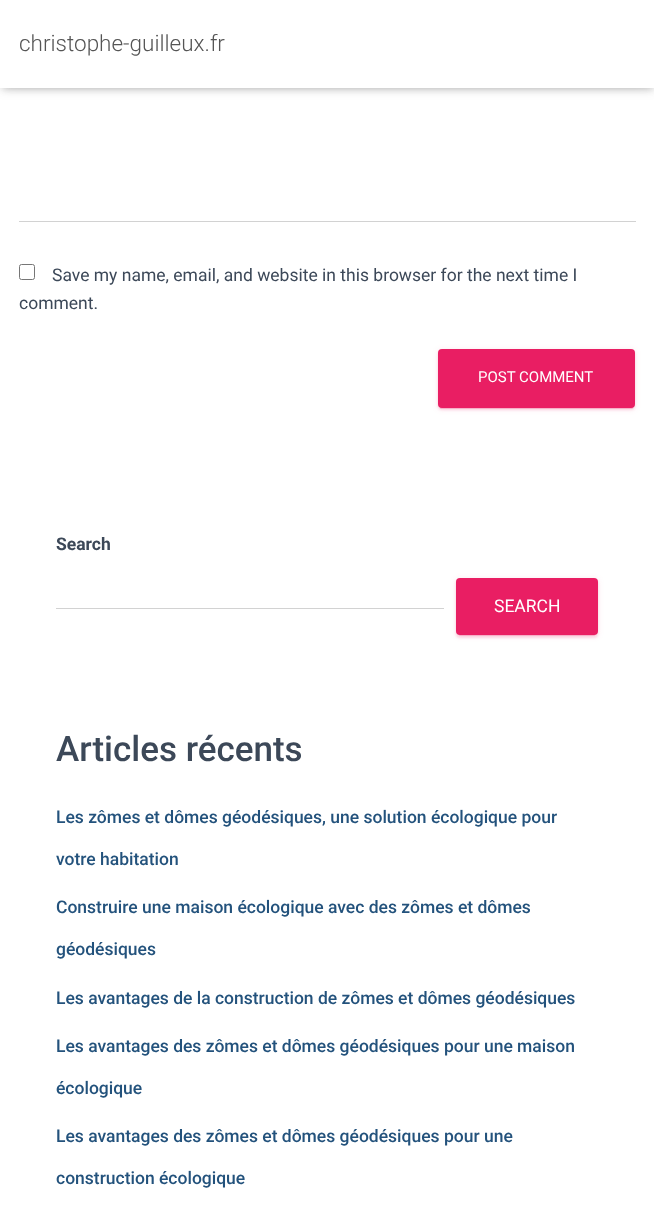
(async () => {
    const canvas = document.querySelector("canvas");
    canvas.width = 654;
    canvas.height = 1218;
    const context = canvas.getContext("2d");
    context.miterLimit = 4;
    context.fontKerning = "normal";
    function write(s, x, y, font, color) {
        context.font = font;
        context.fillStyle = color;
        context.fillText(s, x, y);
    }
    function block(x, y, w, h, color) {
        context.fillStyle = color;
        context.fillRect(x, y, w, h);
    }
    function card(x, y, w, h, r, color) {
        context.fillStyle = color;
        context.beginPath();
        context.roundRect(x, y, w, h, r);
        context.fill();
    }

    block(0, 0, 654, 1218, "rgb(255, 255, 255)");
    context.fillStyle = "rgba(0, 0, 0, 0.1)";
    context.filter = "blur(3px)";
    context.beginPath();
    context.rect(3, 8, 650, 82);
    context.fill();
    context.filter = "none";
    context.fillStyle = "rgba(0, 0, 0, 0.12)";
    context.filter = "blur(6px)";
    context.beginPath();
    context.rect(0, 1, 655, 88);
    context.fill();
    context.filter = "none";
    context.fillStyle = "rgba(0, 0, 0, 0.42)";
    context.filter = "blur(6px)";
    context.beginPath();
    context.rect(8, 9, 640, 72);
    context.fill();
    context.filter = "none";
    block(0, 0, 654, 88, "rgb(255, 255, 255)");
    write("christophe-guilleux.fr", 19, 51, "300 22.5px Roboto", "rgb(85, 85, 85)");
    block(19, 221, 617, 1, "rgb(210, 210, 210)");
    context.beginPath();
    context.roundRect(19.5, 264.5, 15, 15, 2);
    context.strokeStyle = "rgb(118, 118, 118)";
    context.stroke();
    write("Save my name, email, and website in this browser for the next time I", 52, 281, "17.5px Roboto", "rgb(60, 72, 88)");
    write("comment.", 19, 309, "17.5px Roboto", "rgb(60, 72, 88)");
    context.fillStyle = "rgba(233, 30, 99, 0.12)";
    context.filter = "blur(3px)";
    context.beginPath();
    context.roundRect(438, 350, 197, 59, 4);
    context.fill();
    context.filter = "none";
    context.fillStyle = "rgba(233, 30, 99, 0.2)";
    context.filter = "blur(0.5px)";
    context.beginPath();
    context.roundRect(440, 355, 193, 54, 1);
    context.fill();
    context.filter = "none";
    context.fillStyle = "rgba(233, 30, 99, 0.14)";
    context.filter = "blur(1px)";
    context.beginPath();
    context.roundRect(438, 351, 197, 59, 4);
    context.fill();
    context.filter = "none";
    card(438, 349, 197, 59, 4, "rgb(233, 30, 99)");
    write("POST COMMENT", 478, 382, "15px Roboto", "rgb(255, 255, 255)");
    write("Search", 56, 550, "bold 17.5px Roboto", "rgb(60, 72, 88)");
    block(56, 608, 388, 1, "rgb(210, 210, 210)");
    context.fillStyle = "rgba(233, 30, 99, 0.12)";
    context.filter = "blur(3px)";
    context.beginPath();
    context.roundRect(456, 579, 142, 57, 4);
    context.fill();
    context.filter = "none";
    context.fillStyle = "rgba(233, 30, 99, 0.2)";
    context.filter = "blur(0.5px)";
    context.beginPath();
    context.roundRect(459, 584, 136, 52, 1);
    context.fill();
    context.filter = "none";
    context.fillStyle = "rgba(233, 30, 99, 0.14)";
    context.filter = "blur(1px)";
    context.beginPath();
    context.roundRect(456, 580, 142, 58, 4);
    context.fill();
    context.filter = "none";
    card(456, 578, 142, 57, 4, "rgb(233, 30, 99)");
    write("SEARCH", 494, 612, "17.5px Roboto", "rgb(255, 255, 255)");
    write("Articles récents", 56, 761, "500 35px Roboto", "rgb(60, 72, 88)");
    write("Les zômes et dômes géodésiques, une solution écologique pour", 56, 823, "500 17.5px Roboto", "rgb(35, 82, 124)");
    write("votre habitation", 56, 865, "500 17.5px Roboto", "rgb(35, 82, 124)");
    write("Construire une maison écologique avec des zômes et dômes", 56, 913, "500 17.5px Roboto", "rgb(35, 82, 124)");
    write("géodésiques", 56, 955, "500 17.5px Roboto", "rgb(35, 82, 124)");
    write("Les avantages de la construction de zômes et dômes géodésiques", 56, 1004, "500 17.5px Roboto", "rgb(35, 82, 124)");
    write("Les avantages des zômes et dômes géodésiques pour une maison", 56, 1052, "500 17.5px Roboto", "rgb(35, 82, 124)");
    write("écologique", 56, 1094, "500 17.5px Roboto", "rgb(35, 82, 124)");
    write("Les avantages des zômes et dômes géodésiques pour une", 56, 1142, "500 17.5px Roboto", "rgb(35, 82, 124)");
    write("construction écologique", 56, 1184, "500 17.5px Roboto", "rgb(35, 82, 124)");
})();
